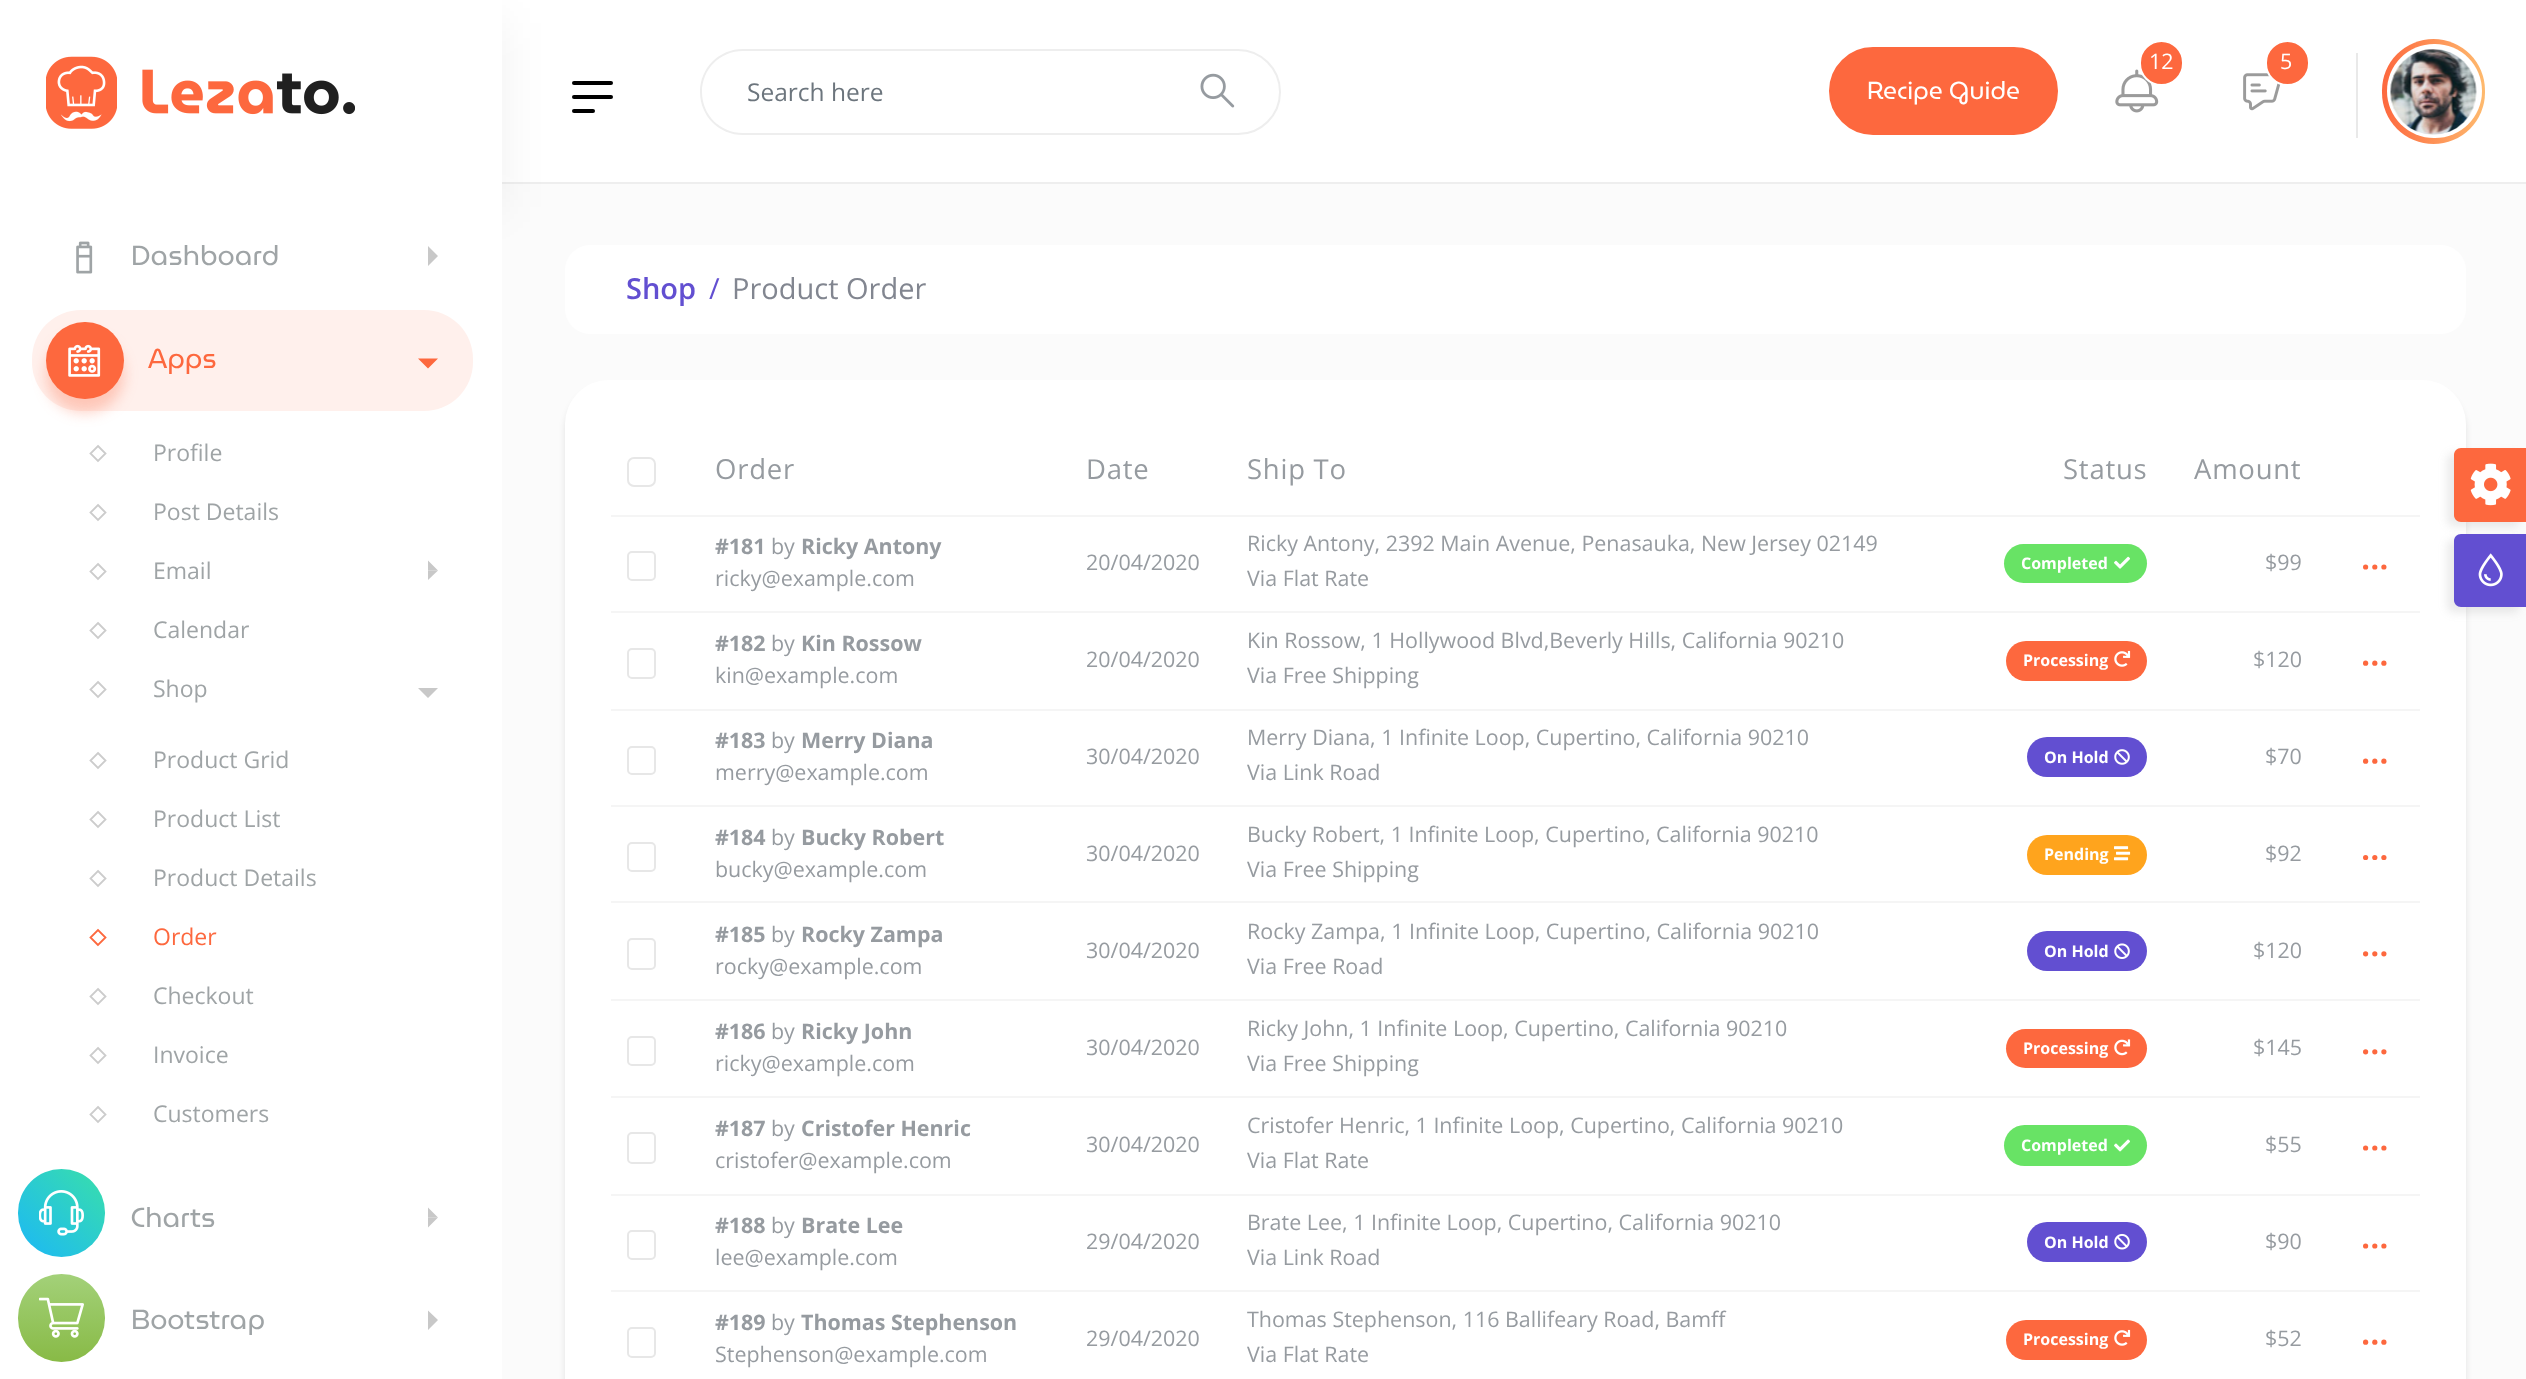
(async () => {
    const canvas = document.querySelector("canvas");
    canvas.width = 2526;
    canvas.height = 1379;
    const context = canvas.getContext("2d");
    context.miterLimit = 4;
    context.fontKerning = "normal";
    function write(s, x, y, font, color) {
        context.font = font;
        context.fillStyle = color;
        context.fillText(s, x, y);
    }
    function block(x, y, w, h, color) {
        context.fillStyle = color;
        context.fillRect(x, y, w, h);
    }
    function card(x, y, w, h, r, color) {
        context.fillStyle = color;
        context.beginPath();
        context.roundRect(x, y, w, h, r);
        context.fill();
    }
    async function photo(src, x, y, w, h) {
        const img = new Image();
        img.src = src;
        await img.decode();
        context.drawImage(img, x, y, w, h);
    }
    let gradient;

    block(0, 0, 2526, 1379, "rgb(251, 251, 251)");
    block(502, 0, 2024, 182, "rgb(255, 255, 255)");
    block(502, 182, 2024, 2, "rgb(238, 238, 238)");
    card(565, 245, 1901, 89, 25, "rgb(255, 255, 255)");
    context.fillStyle = "rgba(0, 0, 0, 0.06)";
    context.filter = "blur(23px)";
    context.beginPath();
    context.rect(0, 23, 502, 184);
    context.fill();
    context.filter = "none";
    block(0, 0, 502, 1379, "rgb(255, 255, 255)");
    await photo("media/1.png", 46, 56, 71, 73);
    await photo("media/2.png", 142, 69, 213, 46);
    card(572, 81, 41, 4, 2, "rgb(0, 0, 0)");
    card(572, 95, 41, 4, 2, "rgb(0, 0, 0)");
    card(572, 109, 23, 4, 2, "rgb(0, 0, 0)");
    context.beginPath();
    context.roundRect(1154, 50, 126, 84, [0, 42, 42, 0]);
    context.strokeStyle = "rgb(238, 238, 238)";
    context.lineWidth = 2;
    context.stroke();
    context.fillStyle = "rgb(255, 255, 255)";
    context.beginPath();
    context.roundRect(700, 49, 455, 86, [43, 0, 0, 43]);
    context.fill();
    context.fillStyle = "rgb(238, 238, 238)";
    context.beginPath();
    context.moveTo(743, 49);
    context.lineTo(1155, 49);
    context.lineTo(1155, 135);
    context.lineTo(743, 135);
    context.bezierCurveTo(719, 135, 700, 116, 700, 92);
    context.bezierCurveTo(700, 68, 719, 49, 743, 49);
    context.closePath();
    context.moveTo(743, 51);
    context.lineTo(1155, 51);
    context.lineTo(1155, 133);
    context.lineTo(743, 133);
    context.bezierCurveTo(720, 133, 702, 115, 702, 92);
    context.bezierCurveTo(702, 69, 720, 51, 743, 51);
    context.closePath();
    context.fill("evenodd");
    write("Search here", 747, 101, "24.5px Open Sans", "rgb(108, 117, 125)");
    await photo("media/3.png", 1200, 73, 35, 35);
    await photo("media/4.png", 2115, 69, 44, 44);
    context.fillStyle = "rgb(253, 104, 62)";
    context.beginPath();
    context.roundRect(2140, 41, 43, 44, 21.5);
    context.fill();
    context.strokeStyle = "rgb(255, 255, 255)";
    context.stroke();
    write("12", 2149, 69, "21.45px Open Sans", "rgb(255, 255, 255)");
    await photo("media/5.png", 2243, 73, 38, 38);
    context.fillStyle = "rgb(253, 104, 62)";
    context.beginPath();
    context.roundRect(2266, 41, 43, 44, 21.5);
    context.fill();
    context.stroke();
    write("5", 2280, 69, "21.45px Open Sans", "rgb(255, 255, 255)");
    block(2356, 53, 2, 85, "rgb(233, 233, 233)");
    gradient = context.createLinearGradient(2382, 91, 2485, 91);
    gradient.addColorStop(0, "rgb(253, 104, 62)");
    gradient.addColorStop(1, "rgb(254, 186, 110)");
    context.fillStyle = gradient;
    context.beginPath();
    context.roundRect(2382, 39, 103, 105, 51.5);
    context.fill();
    card(2387, 44, 95, 94, 47, "rgb(255, 255, 255)");
    await photo("media/6.png", 2390, 49, 87, 86);
    context.fillStyle = "rgb(253, 104, 62)";
    context.beginPath();
    context.roundRect(1830, 48, 227, 86, 43);
    context.fill();
    context.strokeStyle = "rgb(253, 104, 62)";
    context.stroke();
    write("Recipe Guide", 1867, 99, "24.5px MuseoModerno", "rgb(255, 255, 255)");
    await photo("media/7.png", 76, 241, 17, 33);
    write("Dashboard", 131, 265, "27.5px MuseoModerno", "rgb(159, 164, 166)");
    context.fillStyle = "rgb(200, 200, 200)";
    context.beginPath();
    context.moveTo(438, 256);
    context.lineTo(428, 266);
    context.lineTo(428, 256);
    context.closePath();
    context.moveTo(428, 246);
    context.lineTo(438, 256);
    context.lineTo(428, 256);
    context.closePath();
    context.fill();
    card(32, 310, 441, 101, 49, "rgb(255, 240, 236)");
    context.fillStyle = "rgba(253, 104, 62, 0.3)";
    context.filter = "blur(7px)";
    context.beginPath();
    context.roundRect(46, 336, 78, 77, 38.5);
    context.fill();
    context.filter = "none";
    card(46, 322, 78, 77, 38.5, "rgb(253, 104, 62)");
    await photo("media/8.png", 68, 344, 33, 33);
    write("Apps", 148, 368, "27.5px MuseoModerno", "rgb(253, 104, 62)");
    context.beginPath();
    context.moveTo(428, 368.5);
    context.lineTo(418, 358.5);
    context.lineTo(428, 358.5);
    context.closePath();
    context.moveTo(438, 358.5);
    context.lineTo(428, 368.5);
    context.lineTo(428, 358.5);
    context.closePath();
    context.fill();
    context.beginPath();
    context.moveTo(98, 446);
    context.lineTo(105.5, 453.5);
    context.lineTo(98, 461);
    context.lineTo(90.5, 453.5);
    context.closePath();
    context.strokeStyle = "rgb(204, 204, 204)";
    context.lineWidth = 1.8;
    context.stroke();
    write("Profile", 153, 461, "23px Open Sans", "rgb(159, 164, 166)");
    context.beginPath();
    context.moveTo(98, 505);
    context.lineTo(105.5, 512.5);
    context.lineTo(98, 520);
    context.lineTo(90.5, 512.5);
    context.closePath();
    context.stroke();
    write("Post Details", 153, 520, "23px Open Sans", "rgb(159, 164, 166)");
    context.beginPath();
    context.moveTo(98, 564);
    context.lineTo(105.5, 571.5);
    context.lineTo(98, 579);
    context.lineTo(90.5, 571.5);
    context.closePath();
    context.stroke();
    write("Email", 153, 579, "23px Open Sans", "rgb(159, 164, 166)");
    context.fillStyle = "rgb(200, 200, 200)";
    context.beginPath();
    context.moveTo(438, 570.5);
    context.lineTo(428, 580);
    context.lineTo(428, 570.5);
    context.closePath();
    context.fill();
    context.beginPath();
    context.moveTo(428, 560.5);
    context.lineTo(438, 570.5);
    context.lineTo(428, 570.5);
    context.closePath();
    context.fill();
    context.beginPath();
    context.moveTo(98, 623);
    context.lineTo(105.5, 630.5);
    context.lineTo(98, 638);
    context.lineTo(90.5, 630.5);
    context.closePath();
    context.stroke();
    write("Calendar", 153, 638, "23px Open Sans", "rgb(159, 164, 166)");
    context.beginPath();
    context.moveTo(98, 682);
    context.lineTo(105.5, 689.5);
    context.lineTo(98, 697);
    context.lineTo(90.5, 689.5);
    context.closePath();
    context.stroke();
    write("Shop", 153, 697, "23px Open Sans", "rgb(159, 164, 166)");
    context.fillStyle = "rgb(200, 200, 200)";
    context.beginPath();
    context.moveTo(428, 698);
    context.lineTo(418, 688);
    context.lineTo(428, 688);
    context.closePath();
    context.moveTo(438, 688);
    context.lineTo(428, 698);
    context.lineTo(428, 688);
    context.closePath();
    context.fill();
    context.beginPath();
    context.moveTo(98, 753);
    context.lineTo(105.5, 760.5);
    context.lineTo(98, 768);
    context.lineTo(90.5, 760.5);
    context.closePath();
    context.stroke();
    write("Product Grid", 153, 768, "23px Open Sans", "rgb(159, 164, 166)");
    context.beginPath();
    context.moveTo(98, 812);
    context.lineTo(105.5, 819.5);
    context.lineTo(98, 827);
    context.lineTo(90.5, 819.5);
    context.closePath();
    context.stroke();
    write("Product List", 153, 827, "23px Open Sans", "rgb(159, 164, 166)");
    context.beginPath();
    context.moveTo(98, 871);
    context.lineTo(105.5, 878.5);
    context.lineTo(98, 886);
    context.lineTo(90.5, 878.5);
    context.closePath();
    context.stroke();
    write("Product Details", 153, 886, "23px Open Sans", "rgb(159, 164, 166)");
    context.beginPath();
    context.moveTo(98, 945);
    context.lineTo(90.5, 937.5);
    context.lineTo(98, 930);
    context.lineTo(105.5, 937.5);
    context.closePath();
    context.strokeStyle = "rgb(253, 104, 62)";
    context.stroke();
    write("Order", 153, 945, "23px Open Sans", "rgb(253, 104, 62)");
    context.beginPath();
    context.moveTo(98, 989);
    context.lineTo(105.5, 996.5);
    context.lineTo(98, 1004);
    context.lineTo(90.5, 996.5);
    context.closePath();
    context.strokeStyle = "rgb(204, 204, 204)";
    context.stroke();
    write("Checkout", 153, 1004, "23px Open Sans", "rgb(159, 164, 166)");
    context.beginPath();
    context.moveTo(98, 1048);
    context.lineTo(105.5, 1055.5);
    context.lineTo(98, 1063);
    context.lineTo(90.5, 1055.5);
    context.closePath();
    context.stroke();
    write("Invoice", 153, 1063, "23px Open Sans", "rgb(159, 164, 166)");
    context.beginPath();
    context.moveTo(98, 1107);
    context.lineTo(105.5, 1114.5);
    context.lineTo(98, 1122);
    context.lineTo(90.5, 1114.5);
    context.closePath();
    context.stroke();
    write("Customers", 153, 1122, "23px Open Sans", "rgb(159, 164, 166)");
    write("Charts", 131, 1227, "27.5px MuseoModerno", "rgb(159, 164, 166)");
    context.fillStyle = "rgb(200, 200, 200)";
    context.beginPath();
    context.moveTo(438, 1217.5);
    context.lineTo(428, 1227.5);
    context.lineTo(428, 1217.5);
    context.closePath();
    context.fill();
    context.beginPath();
    context.moveTo(428, 1207.5);
    context.lineTo(438, 1217.5);
    context.lineTo(428, 1217.5);
    context.closePath();
    context.fill();
    write("Bootstrap", 131, 1329, "27.5px MuseoModerno", "rgb(159, 164, 166)");
    context.fillStyle = "rgb(200, 200, 200)";
    context.beginPath();
    context.moveTo(438, 1320);
    context.lineTo(428, 1330);
    context.lineTo(428, 1320);
    context.closePath();
    context.moveTo(428, 1310.5);
    context.lineTo(438, 1320);
    context.lineTo(428, 1320);
    context.closePath();
    context.fill();
    write("Shop", 626, 299, "600 29px Open Sans", "rgb(98, 79, 209)");
    write("/", 709, 299, "29px Open Sans", "rgb(98, 79, 209)");
    write("Product Order", 732, 299, "29px Open Sans", "rgb(130, 134, 144)");
    context.fillStyle = "rgba(0, 0, 0, 0.1)";
    context.filter = "blur(3px)";
    context.beginPath();
    context.roundRect(565, 387, 1901, 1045, 44);
    context.fill();
    context.filter = "none";
    card(565, 380, 1901, 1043, 44, "rgb(255, 255, 255)");
    context.beginPath();
    context.roundRect(628, 458, 27, 28, 6);
    context.strokeStyle = "rgb(231, 231, 231)";
    context.lineWidth = 2;
    context.stroke();
    context.letterSpacing = "0.75px";
    write("Order", 715, 479, "27.5px Open Sans", "rgb(150, 155, 160)");
    write("Date", 1086, 479, "27.5px Open Sans", "rgb(150, 155, 160)");
    write("Ship To", 1247, 479, "27.5px Open Sans", "rgb(150, 155, 160)");
    write("Status", 2063, 479, "27.5px Open Sans", "rgb(150, 155, 160)");
    write("Amount", 2194, 479, "27.5px Open Sans", "rgb(150, 155, 160)");
    block(611, 515, 1809, 2, "rgb(245, 245, 245)");
    context.beginPath();
    context.roundRect(628, 552, 27, 28, 4);
    context.stroke();
    context.letterSpacing = "0px";
    write("#181", 715, 554, "bold 21.45px Open Sans", "rgb(150, 155, 160)");
    write("by", 771, 554, "21.45px Open Sans", "rgb(150, 155, 160)");
    write("Ricky Antony", 801, 554, "bold 21.45px Open Sans", "rgb(150, 155, 160)");
    write("ricky@example.com", 715, 586, "21.45px Open Sans", "rgb(150, 155, 160)");
    write("20/04/2020", 1086, 570, "21.45px Open Sans", "rgb(150, 155, 160)");
    write("Ricky Antony, 2392 Main Avenue, Penasauka, New Jersey 02149", 1247, 551, "21.45px Open Sans", "rgb(150, 155, 160)");
    write("Via Flat Rate", 1247, 586, "21.45px Open Sans", "rgb(150, 155, 160)");
    card(2004, 544, 143, 39, 19.5, "rgb(104, 227, 101)");
    write("Completed", 2021, 569, "bold 16px Open Sans", "rgb(255, 255, 255)");
    await photo("media/9.png", 2114, 556, 16, 13);
    write("$99", 2265, 570, "21.45px Open Sans", "rgb(150, 155, 160)");
    block(611, 611, 1809, 2, "rgb(245, 245, 245)");
    context.fillStyle = "rgb(253, 104, 62)";
    context.beginPath();
    context.arc(2365.6, 567, 2.6, 0, Math.PI * 2);
    context.fill();
    context.beginPath();
    context.arc(2374.8, 567, 2.6, 0, Math.PI * 2);
    context.fill();
    context.beginPath();
    context.arc(2383.9, 567, 2.6, 0, Math.PI * 2);
    context.fill();
    context.beginPath();
    context.roundRect(628, 649, 27, 29, 4);
    context.stroke();
    write("#182", 715, 651, "bold 21.45px Open Sans", "rgb(150, 155, 160)");
    write("by", 771, 651, "21.45px Open Sans", "rgb(150, 155, 160)");
    write("Kin Rossow", 801, 651, "bold 21.45px Open Sans", "rgb(150, 155, 160)");
    write("kin@example.com", 715, 683, "21.45px Open Sans", "rgb(150, 155, 160)");
    write("20/04/2020", 1086, 667, "21.45px Open Sans", "rgb(150, 155, 160)");
    write("Kin Rossow, 1 Hollywood Blvd,Beverly Hills, California 90210", 1247, 648, "21.45px Open Sans", "rgb(150, 155, 160)");
    write("Via Free Shipping", 1247, 683, "21.45px Open Sans", "rgb(150, 155, 160)");
    card(2006, 641, 141, 40, 20, "rgb(253, 104, 62)");
    write("Processing", 2023, 666, "bold 16px Open Sans", "rgb(255, 255, 255)");
    await photo("media/10.png", 2114, 650, 17, 17);
    write("$120", 2253, 667, "21.45px Open Sans", "rgb(150, 155, 160)");
    block(611, 709, 1809, 2, "rgb(245, 245, 245)");
    context.fillStyle = "rgb(253, 104, 62)";
    context.beginPath();
    context.arc(2365.6, 663.2, 2.6, 0, Math.PI * 2);
    context.fill();
    context.beginPath();
    context.arc(2374.8, 663.2, 2.6, 0, Math.PI * 2);
    context.fill();
    context.beginPath();
    context.arc(2383.9, 663.2, 2.6, 0, Math.PI * 2);
    context.fill();
    context.beginPath();
    context.roundRect(628, 747, 27, 27, 4);
    context.stroke();
    write("#183", 715, 748, "bold 21.45px Open Sans", "rgb(150, 155, 160)");
    write("by", 771, 748, "21.45px Open Sans", "rgb(150, 155, 160)");
    write("Merry Diana", 801, 748, "bold 21.45px Open Sans", "rgb(150, 155, 160)");
    write("merry@example.com", 715, 780, "21.45px Open Sans", "rgb(150, 155, 160)");
    write("30/04/2020", 1086, 764, "21.45px Open Sans", "rgb(150, 155, 160)");
    write("Merry Diana, 1 Infinite Loop, Cupertino, California 90210", 1247, 745, "21.45px Open Sans", "rgb(150, 155, 160)");
    write("Via Link Road", 1247, 780, "21.45px Open Sans", "rgb(150, 155, 160)");
    card(2027, 737, 120, 40, 20, "rgb(98, 79, 209)");
    write("On Hold", 2044, 763, "bold 16px Open Sans", "rgb(255, 255, 255)");
    await photo("media/11.png", 2114, 749, 16, 16);
    write("$70", 2265, 764, "21.45px Open Sans", "rgb(150, 155, 160)");
    block(611, 805, 1809, 2, "rgb(245, 245, 245)");
    context.fillStyle = "rgb(253, 104, 62)";
    context.beginPath();
    context.arc(2365.6, 761.2, 2.6, 0, Math.PI * 2);
    context.fill();
    context.beginPath();
    context.arc(2374.8, 761.2, 2.6, 0, Math.PI * 2);
    context.fill();
    context.beginPath();
    context.arc(2383.9, 761.2, 2.6, 0, Math.PI * 2);
    context.fill();
    context.beginPath();
    context.roundRect(628, 843, 27, 28, 4);
    context.stroke();
    write("#184", 715, 845, "bold 21.45px Open Sans", "rgb(150, 155, 160)");
    write("by", 771, 845, "21.45px Open Sans", "rgb(150, 155, 160)");
    write("Bucky Robert", 801, 845, "bold 21.45px Open Sans", "rgb(150, 155, 160)");
    write("bucky@example.com", 715, 877, "21.45px Open Sans", "rgb(150, 155, 160)");
    write("30/04/2020", 1086, 861, "21.45px Open Sans", "rgb(150, 155, 160)");
    write("Bucky Robert, 1 Infinite Loop, Cupertino, California 90210", 1247, 842, "21.45px Open Sans", "rgb(150, 155, 160)");
    write("Via Free Shipping", 1247, 877, "21.45px Open Sans", "rgb(150, 155, 160)");
    card(2027, 835, 120, 40, 20, "rgb(255, 164, 29)");
    write("Pending", 2044, 860, "bold 16px Open Sans", "rgb(255, 255, 255)");
    await photo("media/12.png", 2114, 846, 17, 15);
    write("$92", 2265, 861, "21.45px Open Sans", "rgb(150, 155, 160)");
    block(611, 901, 1809, 2, "rgb(245, 245, 245)");
    context.fillStyle = "rgb(253, 104, 62)";
    context.beginPath();
    context.arc(2365.6, 857.5, 2.6, 0, Math.PI * 2);
    context.fill();
    context.beginPath();
    context.arc(2374.8, 857.5, 2.6, 0, Math.PI * 2);
    context.fill();
    context.beginPath();
    context.arc(2383.9, 857.5, 2.6, 0, Math.PI * 2);
    context.fill();
    context.beginPath();
    context.roundRect(628, 939, 27, 30, 4);
    context.stroke();
    write("#185", 715, 942, "bold 21.45px Open Sans", "rgb(150, 155, 160)");
    write("by", 771, 942, "21.45px Open Sans", "rgb(150, 155, 160)");
    write("Rocky Zampa", 801, 942, "bold 21.45px Open Sans", "rgb(150, 155, 160)");
    write("rocky@example.com", 715, 974, "21.45px Open Sans", "rgb(150, 155, 160)");
    write("30/04/2020", 1086, 958, "21.45px Open Sans", "rgb(150, 155, 160)");
    write("Rocky Zampa, 1 Infinite Loop, Cupertino, California 90210", 1247, 939, "21.45px Open Sans", "rgb(150, 155, 160)");
    write("Via Free Road", 1247, 974, "21.45px Open Sans", "rgb(150, 155, 160)");
    card(2027, 931, 120, 40, 20, "rgb(98, 79, 209)");
    write("On Hold", 2044, 957, "bold 16px Open Sans", "rgb(255, 255, 255)");
    await photo("media/13.png", 2114, 943, 16, 16);
    write("$120", 2253, 958, "21.45px Open Sans", "rgb(150, 155, 160)");
    block(611, 999, 1809, 2, "rgb(245, 245, 245)");
    context.fillStyle = "rgb(253, 104, 62)";
    context.beginPath();
    context.arc(2365.6, 953.8, 2.6, 0, Math.PI * 2);
    context.fill();
    context.beginPath();
    context.arc(2374.8, 953.8, 2.6, 0, Math.PI * 2);
    context.fill();
    context.beginPath();
    context.arc(2383.9, 953.8, 2.6, 0, Math.PI * 2);
    context.fill();
    context.beginPath();
    context.roundRect(628, 1037, 27, 28, 4);
    context.stroke();
    write("#186", 715, 1039, "bold 21.45px Open Sans", "rgb(150, 155, 160)");
    write("by", 771, 1039, "21.45px Open Sans", "rgb(150, 155, 160)");
    write("Ricky John", 801, 1039, "bold 21.45px Open Sans", "rgb(150, 155, 160)");
    write("ricky@example.com", 715, 1071, "21.45px Open Sans", "rgb(150, 155, 160)");
    write("30/04/2020", 1086, 1055, "21.45px Open Sans", "rgb(150, 155, 160)");
    write("Ricky John, 1 Infinite Loop, Cupertino, California 90210", 1247, 1036, "21.45px Open Sans", "rgb(150, 155, 160)");
    write("Via Free Shipping", 1247, 1071, "21.45px Open Sans", "rgb(150, 155, 160)");
    card(2006, 1029, 141, 39, 19.5, "rgb(253, 104, 62)");
    write("Processing", 2023, 1054, "bold 16px Open Sans", "rgb(255, 255, 255)");
    await photo("media/14.png", 2114, 1039, 17, 17);
    write("$145", 2253, 1055, "21.45px Open Sans", "rgb(150, 155, 160)");
    block(611, 1096, 1809, 2, "rgb(245, 245, 245)");
    context.fillStyle = "rgb(253, 104, 62)";
    context.beginPath();
    context.arc(2365.6, 1051.8, 2.6, 0, Math.PI * 2);
    context.fill();
    context.beginPath();
    context.arc(2374.8, 1051.8, 2.6, 0, Math.PI * 2);
    context.fill();
    context.beginPath();
    context.arc(2383.9, 1051.8, 2.6, 0, Math.PI * 2);
    context.fill();
    context.beginPath();
    context.roundRect(628, 1133, 27, 30, 4);
    context.stroke();
    write("#187", 715, 1136, "bold 21.45px Open Sans", "rgb(150, 155, 160)");
    write("by", 771, 1136, "21.45px Open Sans", "rgb(150, 155, 160)");
    write("Cristofer Henric", 801, 1136, "bold 21.45px Open Sans", "rgb(150, 155, 160)");
    write("cristofer@example.com", 715, 1168, "21.45px Open Sans", "rgb(150, 155, 160)");
    write("30/04/2020", 1086, 1152, "21.45px Open Sans", "rgb(150, 155, 160)");
    write("Cristofer Henric, 1 Infinite Loop, Cupertino, California 90210", 1247, 1133, "21.45px Open Sans", "rgb(150, 155, 160)");
    write("Via Flat Rate", 1247, 1168, "21.45px Open Sans", "rgb(150, 155, 160)");
    card(2004, 1125, 143, 41, 20.5, "rgb(104, 227, 101)");
    write("Completed", 2021, 1151, "bold 16px Open Sans", "rgb(255, 255, 255)");
    await photo("media/15.png", 2114, 1139, 16, 13);
    write("$55", 2265, 1152, "21.45px Open Sans", "rgb(150, 155, 160)");
    block(611, 1194, 1809, 2, "rgb(245, 245, 245)");
    context.fillStyle = "rgb(253, 104, 62)";
    context.beginPath();
    context.arc(2365.6, 1148, 2.6, 0, Math.PI * 2);
    context.fill();
    context.beginPath();
    context.arc(2374.8, 1148, 2.6, 0, Math.PI * 2);
    context.fill();
    context.beginPath();
    context.arc(2383.9, 1148, 2.6, 0, Math.PI * 2);
    context.fill();
    context.beginPath();
    context.roundRect(628, 1231, 27, 28, 4);
    context.stroke();
    write("#188", 715, 1233, "bold 21.45px Open Sans", "rgb(150, 155, 160)");
    write("by", 771, 1233, "21.45px Open Sans", "rgb(150, 155, 160)");
    write("Brate Lee", 801, 1233, "bold 21.45px Open Sans", "rgb(150, 155, 160)");
    write("lee@example.com", 715, 1265, "21.45px Open Sans", "rgb(150, 155, 160)");
    write("29/04/2020", 1086, 1249, "21.45px Open Sans", "rgb(150, 155, 160)");
    write("Brate Lee, 1 Infinite Loop, Cupertino, California 90210", 1247, 1230, "21.45px Open Sans", "rgb(150, 155, 160)");
    write("Via Link Road", 1247, 1265, "21.45px Open Sans", "rgb(150, 155, 160)");
    card(2027, 1222, 120, 40, 20, "rgb(98, 79, 209)");
    write("On Hold", 2044, 1248, "bold 16px Open Sans", "rgb(255, 255, 255)");
    await photo("media/16.png", 2114, 1233, 16, 17);
    write("$90", 2265, 1249, "21.45px Open Sans", "rgb(150, 155, 160)");
    block(611, 1290, 1809, 2, "rgb(245, 245, 245)");
    context.fillStyle = "rgb(253, 104, 62)";
    context.beginPath();
    context.arc(2365.6, 1246, 2.6, 0, Math.PI * 2);
    context.fill();
    context.beginPath();
    context.arc(2374.8, 1246, 2.6, 0, Math.PI * 2);
    context.fill();
    context.beginPath();
    context.arc(2383.9, 1246, 2.6, 0, Math.PI * 2);
    context.fill();
    context.beginPath();
    context.roundRect(628, 1328, 27, 29, 4);
    context.stroke();
    write("#189", 715, 1330, "bold 21.45px Open Sans", "rgb(150, 155, 160)");
    write("by", 771, 1330, "21.45px Open Sans", "rgb(150, 155, 160)");
    write("Thomas Stephenson", 801, 1330, "bold 21.45px Open Sans", "rgb(150, 155, 160)");
    write("Stephenson@example.com", 715, 1362, "21.45px Open Sans", "rgb(150, 155, 160)");
    write("29/04/2020", 1086, 1346, "21.45px Open Sans", "rgb(150, 155, 160)");
    write("Thomas Stephenson, 116 Ballifeary Road, Bamff", 1247, 1327, "21.45px Open Sans", "rgb(150, 155, 160)");
    write("Via Flat Rate", 1247, 1362, "21.45px Open Sans", "rgb(150, 155, 160)");
    card(2006, 1320, 141, 40, 20, "rgb(253, 104, 62)");
    write("Processing", 2023, 1345, "bold 16px Open Sans", "rgb(255, 255, 255)");
    await photo("media/10.png", 2114, 1329, 17, 17);
    write("$52", 2265, 1346, "21.45px Open Sans", "rgb(150, 155, 160)");
    context.fillStyle = "rgb(253, 104, 62)";
    context.beginPath();
    context.arc(2365.6, 1342.2, 2.6, 0, Math.PI * 2);
    context.fill();
    context.beginPath();
    context.arc(2374.8, 1342.2, 2.6, 0, Math.PI * 2);
    context.fill();
    context.beginPath();
    context.arc(2383.9, 1342.2, 2.6, 0, Math.PI * 2);
    context.fill();
    context.fillStyle = "rgba(119, 119, 119, 0.15)";
    context.filter = "blur(4px)";
    context.beginPath();
    context.roundRect(2447, 453, 73, 74, 7);
    context.fill();
    context.filter = "none";
    context.fillStyle = "rgb(253, 104, 62)";
    context.beginPath();
    context.moveTo(2461, 448);
    context.lineTo(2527, 448);
    context.lineTo(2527, 522);
    context.lineTo(2461, 522);
    context.bezierCurveTo(2457, 522, 2454, 519, 2454, 515);
    context.lineTo(2454, 455);
    context.bezierCurveTo(2454, 451, 2457, 448, 2461, 448);
    context.closePath();
    context.fill();
    await photo("media/17.png", 2470, 463, 41, 43);
    context.fillStyle = "rgba(119, 119, 119, 0.15)";
    context.filter = "blur(4px)";
    context.beginPath();
    context.roundRect(2447, 539, 73, 74, 7);
    context.fill();
    context.filter = "none";
    context.fillStyle = "rgb(98, 79, 209)";
    context.beginPath();
    context.moveTo(2461, 534);
    context.lineTo(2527, 534);
    context.lineTo(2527, 607);
    context.lineTo(2461, 607);
    context.bezierCurveTo(2457, 607, 2454, 604, 2454, 600);
    context.lineTo(2454, 541);
    context.bezierCurveTo(2454, 537, 2457, 534, 2461, 534);
    context.closePath();
    context.fill();
    await photo("media/18.png", 2478, 553, 25, 34);
    gradient = context.createLinearGradient(18, 1257, 105, 1169);
    gradient.addColorStop(0.08, "rgb(30, 187, 240)");
    gradient.addColorStop(1, "rgb(57, 223, 170)");
    context.fillStyle = gradient;
    context.beginPath();
    context.roundRect(18, 1169, 87, 88, 43.5);
    context.fill();
    await photo("media/19.png", 39, 1190, 45, 46);
    gradient = context.createLinearGradient(61, 1274, 61, 1362);
    gradient.addColorStop(0, "rgb(163, 209, 121)");
    gradient.addColorStop(1, "rgb(136, 186, 70)");
    context.fillStyle = gradient;
    context.beginPath();
    context.roundRect(18, 1274, 87, 88, 43.5);
    context.fill();
    await photo("media/20.png", 39, 1297, 45, 41);
})();
